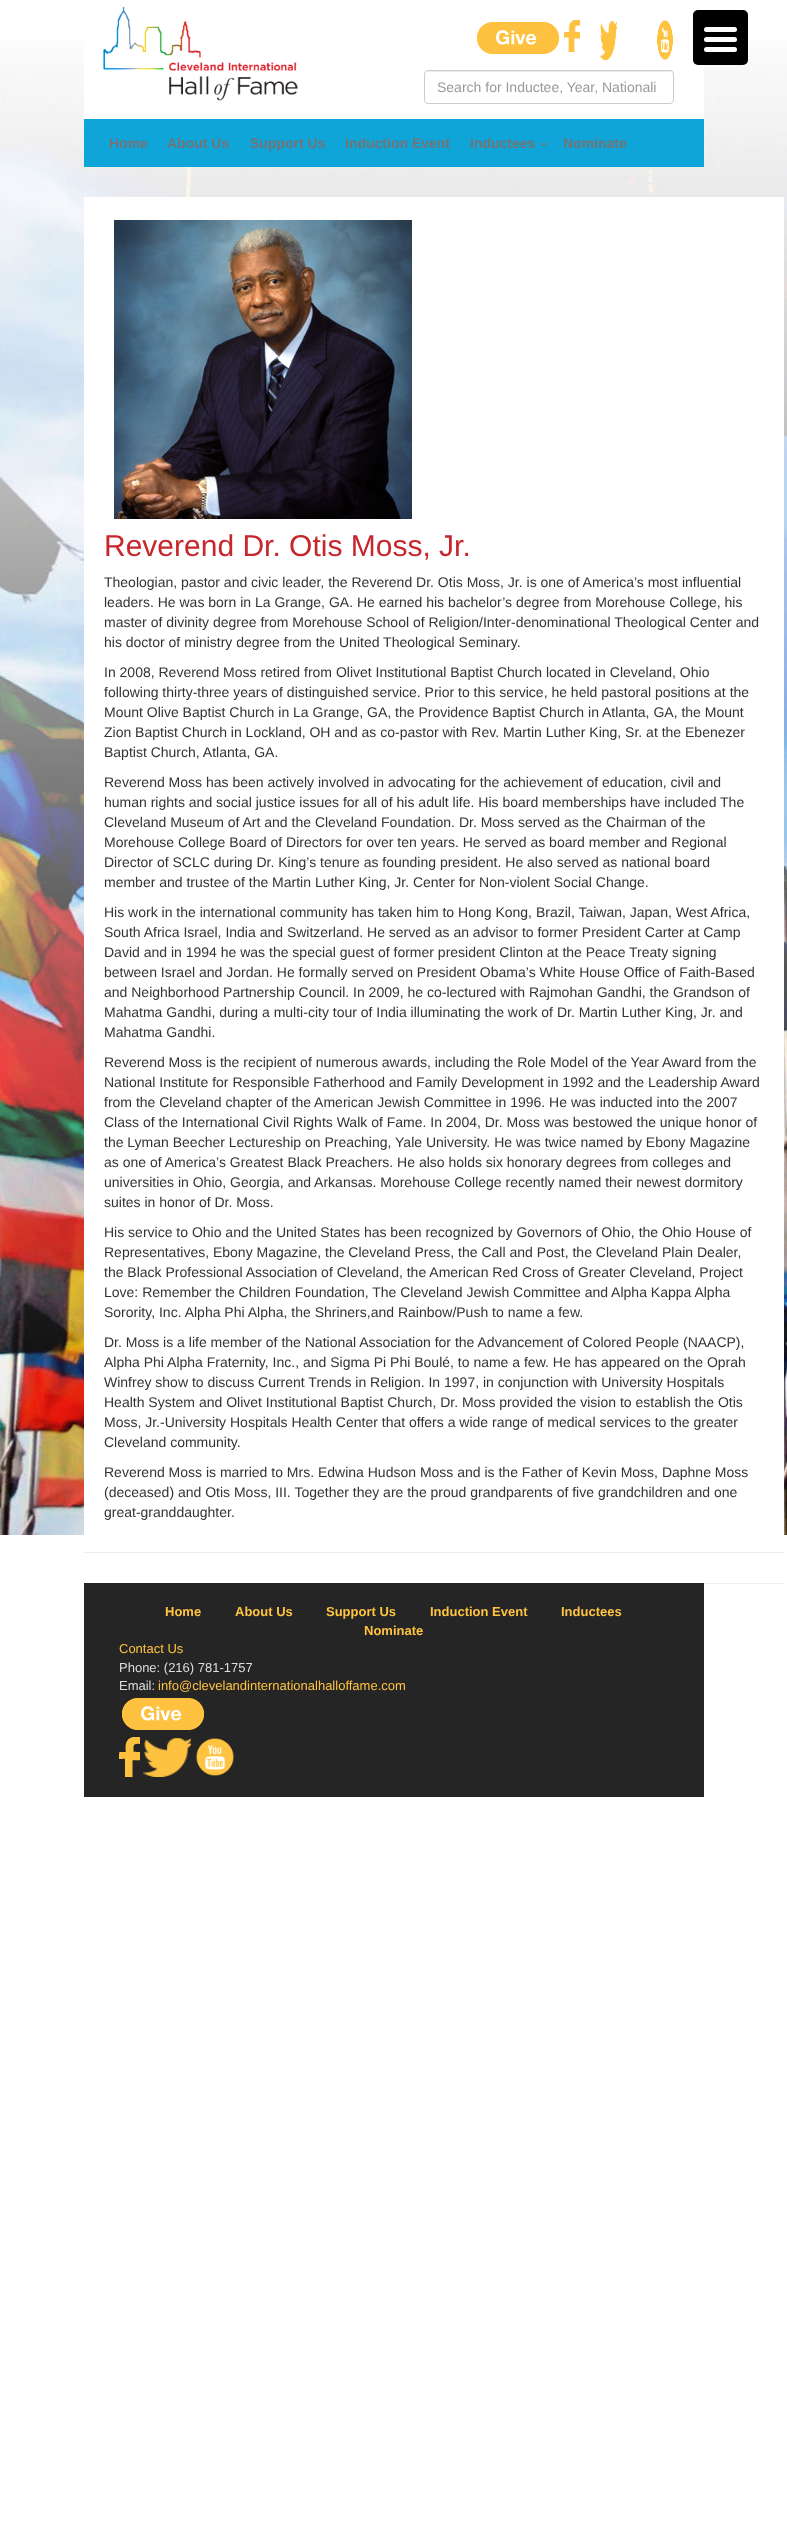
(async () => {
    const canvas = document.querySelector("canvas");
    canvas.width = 787;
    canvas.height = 2539;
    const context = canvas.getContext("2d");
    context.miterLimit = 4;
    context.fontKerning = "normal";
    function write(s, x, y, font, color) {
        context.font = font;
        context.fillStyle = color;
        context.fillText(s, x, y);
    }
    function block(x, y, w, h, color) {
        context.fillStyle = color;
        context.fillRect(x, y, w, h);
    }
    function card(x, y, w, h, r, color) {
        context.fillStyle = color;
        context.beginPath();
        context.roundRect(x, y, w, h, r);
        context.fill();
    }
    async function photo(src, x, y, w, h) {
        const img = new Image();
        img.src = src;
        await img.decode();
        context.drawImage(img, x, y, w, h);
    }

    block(0, 0, 787, 2539, "rgb(255, 255, 255)");
    await photo("media/1.png", 0, 40, 787, 1495);
    block(84, 40, 620, 79, "rgb(255, 255, 255)");
    card(693, 10, 55, 55, 5, "rgb(0, 0, 0)");
    card(704, 37, 33, 5, 2.5, "rgb(255, 255, 255)");
    card(704, 27, 33, 5, 2.5, "rgb(255, 255, 255)");
    card(704, 47, 33, 5, 2.5, "rgb(255, 255, 255)");
    await photo("media/2.png", 103, 6, 195, 95);
    await photo("media/3.png", 477, 22, 82, 32);
    await photo("media/4.png", 564, 20, 16, 32);
    await photo("media/5.png", 600, 21, 17, 39);
    await photo("media/6.png", 657, 20, 16, 40);
    context.fillStyle = "rgb(236, 236, 236)";
    context.beginPath();
    context.moveTo(428, 72);
    context.lineTo(670, 72);
    context.bezierCurveTo(672, 72, 673, 73, 673, 75);
    context.bezierCurveTo(673, 73, 672, 71, 670, 71);
    context.lineTo(428, 71);
    context.bezierCurveTo(426, 71, 425, 73, 425, 75);
    context.bezierCurveTo(425, 73, 426, 72, 428, 72);
    context.closePath();
    context.fill();
    context.beginPath();
    context.roundRect(424.5, 70.5, 249, 33, 3.5);
    context.strokeStyle = "rgb(204, 204, 204)";
    context.stroke();
    write("Search for Inductee, Year, Nationali", 437, 92, "14px Liberation Sans", "rgb(153, 153, 153)");
    block(84, 119, 620, 48, "rgb(15, 165, 217)");
    write("Home", 109, 148, "bold 14px Liberation Sans", "rgb(116, 116, 118)");
    write("About Us", 167, 148, "bold 14px Liberation Sans", "rgb(116, 116, 118)");
    write("Support Us", 250, 148, "bold 14px Liberation Sans", "rgb(116, 116, 118)");
    write("Induction Event", 345, 148, "bold 14px Liberation Sans", "rgb(116, 116, 118)");
    write("Inductees", 470, 148, "bold 14px Liberation Sans", "rgb(116, 116, 118)");
    await photo("media/7.png", 540, 142, 8, 5);
    write("Nominate", 563, 148, "bold 14px Liberation Sans", "rgb(116, 116, 118)");
    context.fillStyle = "rgba(0, 0, 0, 0.06)";
    context.filter = "blur(0.5px)";
    context.beginPath();
    context.rect(84, 198, 700, 1386);
    context.fill();
    context.filter = "none";
    block(84, 197, 700, 1386, "rgb(255, 255, 255)");
    await photo("media/8.png", 114, 217, 298, 302);
    write("Reverend Dr. Otis Moss, Jr.", 104, 556, "30px Liberation Sans", "rgb(198, 38, 44)");
    write("Theologian, pastor and civic leader, the Reverend Dr. Otis Moss, Jr. is one of America’s most influential", 104, 587, "14px Liberation Sans", "rgb(51, 51, 51)");
    write("leaders. He was born in La Grange, GA. He earned his bachelor’s degree from Morehouse College, his", 104, 607, "14px Liberation Sans", "rgb(51, 51, 51)");
    write("master of divinity degree from Morehouse School of Religion/Inter-denominational Theological Center and", 104, 627, "14px Liberation Sans", "rgb(51, 51, 51)");
    write("his doctor of ministry degree from the United Theological Seminary.", 104, 647, "14px Liberation Sans", "rgb(51, 51, 51)");
    write("In 2008, Reverend Moss retired from Olivet Institutional Baptist Church located in Cleveland, Ohio", 104, 677, "14px Liberation Sans", "rgb(51, 51, 51)");
    write("following thirty-three years of distinguished service. Prior to this service, he held pastoral positions at the", 104, 697, "14px Liberation Sans", "rgb(51, 51, 51)");
    write("Mount Olive Baptist Church in La Grange, GA, the Providence Baptist Church in Atlanta, GA, the Mount", 104, 717, "14px Liberation Sans", "rgb(51, 51, 51)");
    write("Zion Baptist Church in Lockland, OH and as co-pastor with Rev. Martin Luther King, Sr. at the Ebenezer", 104, 737, "14px Liberation Sans", "rgb(51, 51, 51)");
    write("Baptist Church, Atlanta, GA.", 104, 757, "14px Liberation Sans", "rgb(51, 51, 51)");
    write("Reverend Moss has been actively involved in advocating for the achievement of education, civil and", 104, 787, "14px Liberation Sans", "rgb(51, 51, 51)");
    write("human rights and social justice issues for all of his adult life. His board memberships have included The", 104, 807, "14px Liberation Sans", "rgb(51, 51, 51)");
    write("Cleveland Museum of Art and the Cleveland Foundation. Dr. Moss served as the Chairman of the", 104, 827, "14px Liberation Sans", "rgb(51, 51, 51)");
    write("Morehouse College Board of Directors for over ten years. He served as board member and Regional", 104, 847, "14px Liberation Sans", "rgb(51, 51, 51)");
    write("Director of SCLC during Dr. King’s tenure as founding president. He also served as national board", 104, 867, "14px Liberation Sans", "rgb(51, 51, 51)");
    write("member and trustee of the Martin Luther King, Jr. Center for Non-violent Social Change.", 104, 887, "14px Liberation Sans", "rgb(51, 51, 51)");
    write("His work in the international community has taken him to Hong Kong, Brazil, Taiwan, Japan, West Africa,", 104, 917, "14px Liberation Sans", "rgb(51, 51, 51)");
    write("South Africa Israel, India and Switzerland. He served as an advisor to former President Carter at Camp", 104, 937, "14px Liberation Sans", "rgb(51, 51, 51)");
    write("David and in 1994 he was the special guest of former president Clinton at the Peace Treaty signing", 104, 957, "14px Liberation Sans", "rgb(51, 51, 51)");
    write("between Israel and Jordan. He formally served on President Obama’s White House Office of Faith-Based", 104, 977, "14px Liberation Sans", "rgb(51, 51, 51)");
    write("and Neighborhood Partnership Council. In 2009, he co-lectured with Rajmohan Gandhi, the Grandson of", 104, 997, "14px Liberation Sans", "rgb(51, 51, 51)");
    write("Mahatma Gandhi, during a multi-city tour of India illuminating the work of Dr. Martin Luther King, Jr. and", 104, 1017, "14px Liberation Sans", "rgb(51, 51, 51)");
    write("Mahatma Gandhi.", 104, 1037, "14px Liberation Sans", "rgb(51, 51, 51)");
    write("Reverend Moss is the recipient of numerous awards, including the Role Model of the Year Award from the", 104, 1067, "14px Liberation Sans", "rgb(51, 51, 51)");
    write("National Institute for Responsible Fatherhood and Family Development in 1992 and the Leadership Award", 104, 1087, "14px Liberation Sans", "rgb(51, 51, 51)");
    write("from the Cleveland chapter of the American Jewish Committee in 1996. He was inducted into the 2007", 104, 1107, "14px Liberation Sans", "rgb(51, 51, 51)");
    write("Class of the International Civil Rights Walk of Fame. In 2004, Dr. Moss was bestowed the unique honor of", 104, 1127, "14px Liberation Sans", "rgb(51, 51, 51)");
    write("the Lyman Beecher Lectureship on Preaching, Yale University. He was twice named by Ebony Magazine", 104, 1147, "14px Liberation Sans", "rgb(51, 51, 51)");
    write("as one of America’s Greatest Black Preachers. He also holds six honorary degrees from colleges and", 104, 1167, "14px Liberation Sans", "rgb(51, 51, 51)");
    write("universities in Ohio, Georgia, and Arkansas. Morehouse College recently named their newest dormitory", 104, 1187, "14px Liberation Sans", "rgb(51, 51, 51)");
    write("suites in honor of Dr. Moss.", 104, 1207, "14px Liberation Sans", "rgb(51, 51, 51)");
    write("His service to Ohio and the United States has been recognized by Governors of Ohio, the Ohio House of", 104, 1237, "14px Liberation Sans", "rgb(51, 51, 51)");
    write("Representatives, Ebony Magazine, the Cleveland Press, the Call and Post, the Cleveland Plain Dealer,", 104, 1257, "14px Liberation Sans", "rgb(51, 51, 51)");
    write("the Black Professional Association of Cleveland, the American Red Cross of Greater Cleveland, Project", 104, 1277, "14px Liberation Sans", "rgb(51, 51, 51)");
    write("Love: Remember the Children Foundation, The Cleveland Jewish Committee and Alpha Kappa Alpha", 104, 1297, "14px Liberation Sans", "rgb(51, 51, 51)");
    write("Sorority, Inc. Alpha Phi Alpha, the Shriners,and Rainbow/Push to name a few.", 104, 1317, "14px Liberation Sans", "rgb(51, 51, 51)");
    write("Dr. Moss is a life member of the National Association for the Advancement of Colored People (NAACP),", 104, 1347, "14px Liberation Sans", "rgb(51, 51, 51)");
    write("Alpha Phi Alpha Fraternity, Inc., and Sigma Pi Phi Boulé, to name a few. He has appeared on the Oprah", 104, 1367, "14px Liberation Sans", "rgb(51, 51, 51)");
    write("Winfrey show to discuss Current Trends in Religion. In 1997, in conjunction with University Hospitals", 104, 1387, "14px Liberation Sans", "rgb(51, 51, 51)");
    write("Health System and Olivet Institutional Baptist Church, Dr. Moss provided the vision to establish the Otis", 104, 1407, "14px Liberation Sans", "rgb(51, 51, 51)");
    write("Moss, Jr.-University Hospitals Health Center that offers a wide range of medical services to the greater", 104, 1427, "14px Liberation Sans", "rgb(51, 51, 51)");
    write("Cleveland community.", 104, 1447, "14px Liberation Sans", "rgb(51, 51, 51)");
    write("Reverend Moss is married to Mrs. Edwina Hudson Moss and is the Father of Kevin Moss, Daphne Moss", 104, 1477, "14px Liberation Sans", "rgb(51, 51, 51)");
    write("(deceased) and Otis Moss, III. Together they are the proud grandparents of five grandchildren and one", 104, 1497, "14px Liberation Sans", "rgb(51, 51, 51)");
    write("great-granddaughter.", 104, 1517, "14px Liberation Sans", "rgb(51, 51, 51)");
    block(84, 1552, 700, 1, "rgb(237, 237, 237)");
    block(84, 1583, 620, 214, "rgb(37, 37, 37)");
    write("Home", 165, 1616, "bold 13px Liberation Sans", "rgb(254, 195, 64)");
    write("About Us", 235, 1616, "bold 13px Liberation Sans", "rgb(254, 195, 64)");
    write("Support Us", 326, 1616, "bold 13px Liberation Sans", "rgb(254, 195, 64)");
    write("Induction Event", 430, 1616, "bold 13px Liberation Sans", "rgb(254, 195, 64)");
    write("Inductees", 561, 1616, "bold 13px Liberation Sans", "rgb(254, 195, 64)");
    write("Nominate", 364, 1635, "bold 13px Liberation Sans", "rgb(254, 195, 64)");
    write("Contact Us", 119, 1653, "13px Liberation Sans", "rgb(254, 195, 64)");
    write("Phone: (216) 781-1757", 119, 1672, "13px Liberation Sans", "rgb(222, 222, 222)");
    write("Email:", 119, 1690, "13px Liberation Sans", "rgb(222, 222, 222)");
    write("info@clevelandinternationalhalloffame.com", 158, 1690, "13px Liberation Sans", "rgb(254, 195, 64)");
    await photo("media/9.png", 122, 1698, 82, 32);
    await photo("media/10.png", 119, 1737, 21, 40);
    await photo("media/11.png", 143, 1738, 48, 39);
    await photo("media/12.png", 196, 1738, 38, 38);
})();
